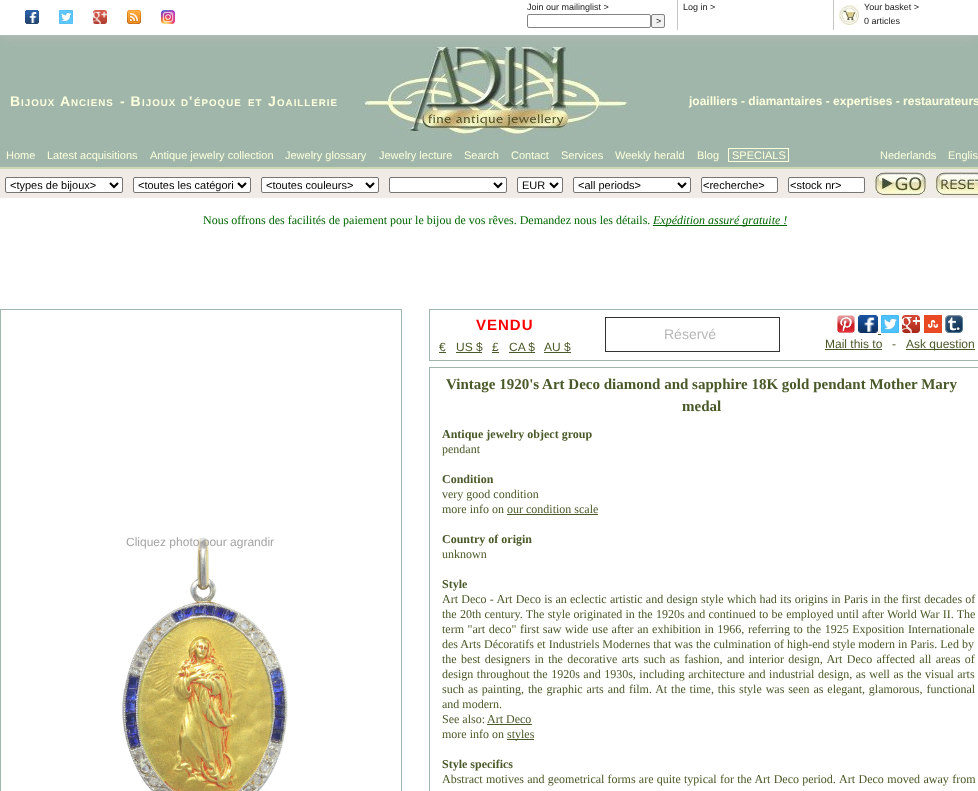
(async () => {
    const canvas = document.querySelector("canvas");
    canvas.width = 978;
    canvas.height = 791;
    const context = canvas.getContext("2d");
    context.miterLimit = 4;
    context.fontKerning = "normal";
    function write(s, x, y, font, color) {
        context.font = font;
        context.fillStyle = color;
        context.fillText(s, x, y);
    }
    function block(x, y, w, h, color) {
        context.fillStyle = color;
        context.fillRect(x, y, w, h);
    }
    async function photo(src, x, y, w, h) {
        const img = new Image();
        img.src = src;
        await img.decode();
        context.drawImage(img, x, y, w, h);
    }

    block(0, 0, 978, 791, "rgb(255, 255, 255)");
    block(0, 36, 978, 131, "rgb(160, 182, 170)");
    await photo("media/7.png", 361, 45, 267, 98);
    context.save();
    context.beginPath();
    context.rect(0, 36, 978, 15);
    context.clip();
    context.fillStyle = "rgba(187, 187, 187, 0.9)";
    context.filter = "blur(7.5px)";
    context.beginPath();
    context.rect(0, 0, 978, 36);
    context.fill();
    context.filter = "none";
    context.restore();
    block(0, 35, 978, 1, "rgb(170, 189, 179)");
    await photo("media/1.png", 25, 10, 14, 14);
    await photo("media/2.png", 59, 10, 14, 14);
    await photo("media/3.png", 93, 10, 14, 14);
    await photo("media/4.png", 127, 10, 14, 14);
    await photo("media/5.png", 161, 10, 14, 14);
    block(677, 0, 1, 30, "rgb(198, 198, 198)");
    write("Join our mailinglist >", 527, 10, "9px Liberation Sans", "rgb(26, 26, 26)");
    context.beginPath();
    context.roundRect(527.5, 14.5, 123, 13, 1.5);
    context.strokeStyle = "rgb(132, 132, 132)";
    context.stroke();
    context.fillStyle = "rgb(241, 241, 241)";
    context.beginPath();
    context.roundRect(651.5, 14.5, 13, 13, 1.5);
    context.fill();
    context.stroke();
    write(">", 656, 24, "9px Liberation Sans", "rgb(26, 26, 26)");
    block(833, 0, 1, 30, "rgb(198, 198, 198)");
    write("Log in >", 683, 10, "9px Liberation Sans", "rgb(26, 26, 26)");
    await photo("media/6.png", 839, 5, 20, 20);
    write("Your basket >", 864, 10, "9px Liberation Sans", "rgb(26, 26, 26)");
    write("0 articles", 864, 24, "9px Liberation Sans", "rgb(26, 26, 26)");
    context.letterSpacing = "1px";
    write("B", 10, 106, "bold 14px Liberation Sans", "rgb(251, 255, 220)");
    write("IJOUX", 21, 106, "bold 9.75px Liberation Sans", "rgb(251, 255, 220)");
    write("A", 60, 106, "bold 14px Liberation Sans", "rgb(251, 255, 220)");
    write("NCIENS", 71, 106, "bold 9.75px Liberation Sans", "rgb(251, 255, 220)");
    write("- B", 120, 106, "bold 14px Liberation Sans", "rgb(251, 255, 220)");
    write("IJOUX", 142, 106, "bold 9.75px Liberation Sans", "rgb(251, 255, 220)");
    write("D", 181, 106, "bold 9.75px Liberation Sans", "rgb(251, 255, 220)");
    write("'", 189, 106, "bold 14px Liberation Sans", "rgb(251, 255, 220)");
    write("ÉPOQUE", 194, 106, "bold 9.75px Liberation Sans", "rgb(251, 255, 220)");
    write("ET", 248, 106, "bold 9.75px Liberation Sans", "rgb(251, 255, 220)");
    write("J", 268, 106, "bold 14px Liberation Sans", "rgb(251, 255, 220)");
    write("OAILLERIE", 277, 106, "bold 9.75px Liberation Sans", "rgb(251, 255, 220)");
    context.letterSpacing = "0px";
    write("joailliers - diamantaires - expertises - restaurateurs", 689, 105, "bold 12px Liberation Sans", "rgb(251, 255, 220)");
    block(0, 167, 978, 2, "rgb(204, 216, 178)");
    write("Home", 6, 159, "11px Liberation Sans", "rgb(251, 255, 220)");
    write("Latest acquisitions", 47, 159, "11px Liberation Sans", "rgb(251, 255, 220)");
    write("Antique jewelry collection", 150, 159, "11px Liberation Sans", "rgb(251, 255, 220)");
    write("Jewelry glossary", 285, 159, "11px Liberation Sans", "rgb(251, 255, 220)");
    write("Jewelry lecture", 379, 159, "11px Liberation Sans", "rgb(251, 255, 220)");
    write("Search", 464, 159, "11px Liberation Sans", "rgb(251, 255, 220)");
    write("Contact", 511, 159, "11px Liberation Sans", "rgb(251, 255, 220)");
    write("Services", 561, 159, "11px Liberation Sans", "rgb(251, 255, 220)");
    write("Weekly herald", 615, 159, "11px Liberation Sans", "rgb(251, 255, 220)");
    write("Blog", 697, 159, "11px Liberation Sans", "rgb(251, 255, 220)");
    context.strokeStyle = "rgb(251, 255, 220)";
    context.strokeRect(728.5, 148.5, 60, 13);
    write("SPECIALS", 732, 159, "11px Liberation Sans", "rgb(251, 255, 220)");
    write("Nederlands", 880, 159, "11px Liberation Sans", "rgb(251, 255, 220)");
    write("Englis", 948, 159, "11px Liberation Sans", "rgb(251, 255, 220)");
    block(0, 169, 978, 29, "rgb(240, 235, 231)");
    context.fillStyle = "rgb(255, 255, 255)";
    context.beginPath();
    context.roundRect(5.5, 177.5, 117, 15, 1.5);
    context.fill();
    context.strokeStyle = "rgb(118, 118, 118)";
    context.stroke();
    context.beginPath();
    context.moveTo(110, 183);
    context.lineTo(114, 187);
    context.lineTo(118, 183);
    context.strokeStyle = "rgb(0, 0, 0)";
    context.lineWidth = 2;
    context.stroke();
    write("<types de bijoux>", 10, 189, "11px Liberation Sans", "rgb(0, 0, 0)");
    context.fillStyle = "rgb(255, 255, 255)";
    context.beginPath();
    context.roundRect(133.5, 177.5, 117, 15, 1.5);
    context.fill();
    context.strokeStyle = "rgb(118, 118, 118)";
    context.lineWidth = 1;
    context.stroke();
    context.beginPath();
    context.moveTo(238, 183);
    context.lineTo(242, 187);
    context.lineTo(246, 183);
    context.strokeStyle = "rgb(0, 0, 0)";
    context.lineWidth = 2;
    context.stroke();
    write("<toutes les catégori", 138, 189, "11px Liberation Sans", "rgb(0, 0, 0)");
    context.fillStyle = "rgb(255, 255, 255)";
    context.beginPath();
    context.roundRect(261.5, 177.5, 117, 15, 1.5);
    context.fill();
    context.strokeStyle = "rgb(118, 118, 118)";
    context.lineWidth = 1;
    context.stroke();
    context.beginPath();
    context.moveTo(366, 183);
    context.lineTo(370, 187);
    context.lineTo(374, 183);
    context.strokeStyle = "rgb(0, 0, 0)";
    context.lineWidth = 2;
    context.stroke();
    write("<toutes couleurs>", 266, 189, "11px Liberation Sans", "rgb(0, 0, 0)");
    context.fillStyle = "rgb(255, 255, 255)";
    context.beginPath();
    context.roundRect(389.5, 177.5, 117, 15, 1.5);
    context.fill();
    context.strokeStyle = "rgb(118, 118, 118)";
    context.lineWidth = 1;
    context.stroke();
    context.beginPath();
    context.moveTo(494, 183);
    context.lineTo(498, 187);
    context.lineTo(502, 183);
    context.strokeStyle = "rgb(0, 0, 0)";
    context.lineWidth = 2;
    context.stroke();
    context.beginPath();
    context.roundRect(517.5, 177.5, 45, 15, 1.5);
    context.fill();
    context.strokeStyle = "rgb(118, 118, 118)";
    context.lineWidth = 1;
    context.stroke();
    context.beginPath();
    context.moveTo(550, 183);
    context.lineTo(554, 187);
    context.lineTo(558, 183);
    context.strokeStyle = "rgb(0, 0, 0)";
    context.lineWidth = 2;
    context.stroke();
    write("EUR", 522, 189, "11px Liberation Sans", "rgb(0, 0, 0)");
    context.fillStyle = "rgb(255, 255, 255)";
    context.beginPath();
    context.roundRect(573.5, 177.5, 117, 15, 1.5);
    context.fill();
    context.strokeStyle = "rgb(118, 118, 118)";
    context.lineWidth = 1;
    context.stroke();
    context.beginPath();
    context.moveTo(678, 183);
    context.lineTo(682, 187);
    context.lineTo(686, 183);
    context.strokeStyle = "rgb(0, 0, 0)";
    context.lineWidth = 2;
    context.stroke();
    write("<all periods>", 578, 189, "11px Liberation Sans", "rgb(0, 0, 0)");
    context.fillStyle = "rgb(255, 255, 255)";
    context.beginPath();
    context.roundRect(701.5, 177.5, 76, 15, 1.5);
    context.fill();
    context.strokeStyle = "rgb(118, 118, 118)";
    context.lineWidth = 1;
    context.stroke();
    write("<recherche>", 703, 189, "11px Liberation Sans", "rgb(0, 0, 0)");
    context.fillStyle = "rgb(255, 255, 255)";
    context.beginPath();
    context.roundRect(788.5, 177.5, 76, 15, 1.5);
    context.fill();
    context.stroke();
    write("<stock nr>", 790, 189, "11px Liberation Sans", "rgb(0, 0, 0)");
    await photo("media/8.png", 870, 170, 58, 26);
    await photo("media/9.png", 930, 170, 48, 26);
    write("Nous offrons des facilités de paiement pour le bijou de vos rêves. Demandez nous les détails.", 203, 224, "12px Liberation Serif", "rgb(0, 102, 0)");
    block(653, 225, 134, 1, "rgb(0, 102, 0)");
    write("Expédition assuré gratuite !", 653, 224, "italic 12px Liberation Serif", "rgb(0, 102, 0)");
    context.strokeStyle = "rgb(160, 182, 170)";
    context.strokeRect(0.5, 309.5, 401, 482);
    await photo("media/10.png", 122, 537, 166, 254);
    block(197, 537, 12, 13, "rgba(255, 255, 255, 0.35)");
    write("Cliquez photo pour agrandir", 126, 546, "12px Liberation Sans", "rgb(164, 164, 164)");
    context.strokeRect(429.5, 309.5, 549, 51);
    context.letterSpacing = "1px";
    write("VENDU", 476, 330, "bold 15px Liberation Sans", "rgb(255, 0, 0)");
    context.letterSpacing = "0px";
    write("€", 439, 351, "12px Liberation Sans", "rgb(74, 89, 41)");
    block(439, 352, 7, 1, "rgb(74, 89, 41)");
    write("US $", 456, 351, "12px Liberation Sans", "rgb(74, 89, 41)");
    block(456, 352, 26, 1, "rgb(74, 89, 41)");
    write("£", 492, 351, "12px Liberation Sans", "rgb(74, 89, 41)");
    block(492, 352, 7, 1, "rgb(74, 89, 41)");
    write("CA $", 509, 351, "12px Liberation Sans", "rgb(74, 89, 41)");
    block(509, 352, 26, 1, "rgb(74, 89, 41)");
    write("AU $", 544, 351, "12px Liberation Sans", "rgb(74, 89, 41)");
    block(544, 352, 27, 1, "rgb(74, 89, 41)");
    context.strokeStyle = "rgb(51, 51, 51)";
    context.strokeRect(605.5, 317.5, 174, 34);
    write("Réservé", 664, 339, "14px Liberation Sans", "rgb(183, 183, 183)");
    await photo("media/11.png", 837, 315, 18, 18);
    await photo("media/12.png", 858, 315, 20, 18);
    await photo("media/13.png", 881, 315, 18, 18);
    await photo("media/14.png", 902, 315, 18, 18);
    await photo("media/15.png", 924, 315, 18, 18);
    await photo("media/16.png", 945, 315, 18, 18);
    block(878, 334, 3, 1, "rgb(74, 89, 41)");
    write("Mail this to", 825, 348, "12px Liberation Sans", "rgb(74, 89, 41)");
    block(825, 349, 57, 1, "rgb(74, 89, 41)");
    write("-", 892, 348, "12px Liberation Sans", "rgb(74, 89, 41)");
    block(906, 349, 69, 1, "rgb(74, 89, 41)");
    write("Ask question", 906, 348, "12px Liberation Sans", "rgb(74, 89, 41)");
    context.strokeStyle = "rgb(160, 182, 170)";
    context.strokeRect(429.5, 367.5, 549, 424);
    write("Vintage 1920's Art Deco diamond and sapphire 18K gold pendant Mother Mary", 446, 389, "bold 15px Liberation Serif", "rgb(74, 89, 41)");
    write("medal", 682, 411, "bold 15px Liberation Serif", "rgb(74, 89, 41)");
    write("Antique jewelry object group", 442, 438, "bold 12px Liberation Serif", "rgb(74, 89, 41)");
    write("pendant", 442, 453, "12px Liberation Serif", "rgb(74, 89, 41)");
    write("Condition", 442, 483, "bold 12px Liberation Serif", "rgb(74, 89, 41)");
    write("very good condition", 442, 498, "12px Liberation Serif", "rgb(74, 89, 41)");
    write("more info on our condition scale", 442, 513, "12px Liberation Serif", "rgb(74, 89, 41)");
    block(507, 514, 91, 1, "rgb(74, 89, 41)");
    write("Country of origin", 442, 543, "bold 12px Liberation Serif", "rgb(74, 89, 41)");
    write("unknown", 442, 558, "12px Liberation Serif", "rgb(74, 89, 41)");
    write("Style", 442, 588, "bold 12px Liberation Serif", "rgb(74, 89, 41)");
    context.wordSpacing = "0.25px";
    write("Art Deco - Art Deco is an eclectic artistic and design style which had its origins in Paris in the first decades of", 442, 603, "12px Liberation Serif", "rgb(74, 89, 41)");
    write("the 20th century. The style originated in the 1920s and continued to be employed until after World War II. The", 442, 618, "12px Liberation Serif", "rgb(74, 89, 41)");
    context.wordSpacing = "0.6px";
    write("term \"art deco\" first saw wide use after an exhibition in 1966, referring to the 1925 Exposition Internationale", 442, 633, "12px Liberation Serif", "rgb(74, 89, 41)");
    context.wordSpacing = "0px";
    write("des Arts Décoratifs et Industriels Modernes that was the culmination of high-end style modern in Paris. Led by", 442, 648, "12px Liberation Serif", "rgb(74, 89, 41)");
    context.wordSpacing = "1.4px";
    write("the best designers in the decorative arts such as fashion, and interior design, Art Deco affected all areas of", 442, 663, "12px Liberation Serif", "rgb(74, 89, 41)");
    context.wordSpacing = "0.5px";
    write("design throughout the 1920s and 1930s, including architecture and industrial design, as well as the visual arts", 442, 678, "12px Liberation Serif", "rgb(74, 89, 41)");
    context.wordSpacing = "0.9px";
    write("such as painting, the graphic arts and film. At the time, this style was seen as elegant, glamorous, functional", 442, 693, "12px Liberation Serif", "rgb(74, 89, 41)");
    context.wordSpacing = "0px";
    write("and modern.", 442, 708, "12px Liberation Serif", "rgb(74, 89, 41)");
    write("See also:", 442, 723, "12px Liberation Serif", "rgb(74, 89, 41)");
    write("Art Deco", 487, 723, "12px Liberation Serif", "rgb(74, 89, 41)");
    block(487, 724, 45, 1, "rgb(74, 89, 41)");
    write("more info on", 442, 738, "12px Liberation Serif", "rgb(74, 89, 41)");
    block(507, 739, 27, 1, "rgb(74, 89, 41)");
    write("styles", 507, 738, "12px Liberation Serif", "rgb(74, 89, 41)");
    write("Style specifics", 442, 768, "bold 12px Liberation Serif", "rgb(74, 89, 41)");
    context.wordSpacing = "0.25px";
    write("Abstract motives and geometrical forms are quite typical for the Art Deco period.", 442, 783, "12px Liberation Serif", "rgb(74, 89, 41)");
    context.wordSpacing = "0.5px";
    write("Art Deco moved away from", 839, 783, "12px Liberation Serif", "rgb(74, 89, 41)");
})();
